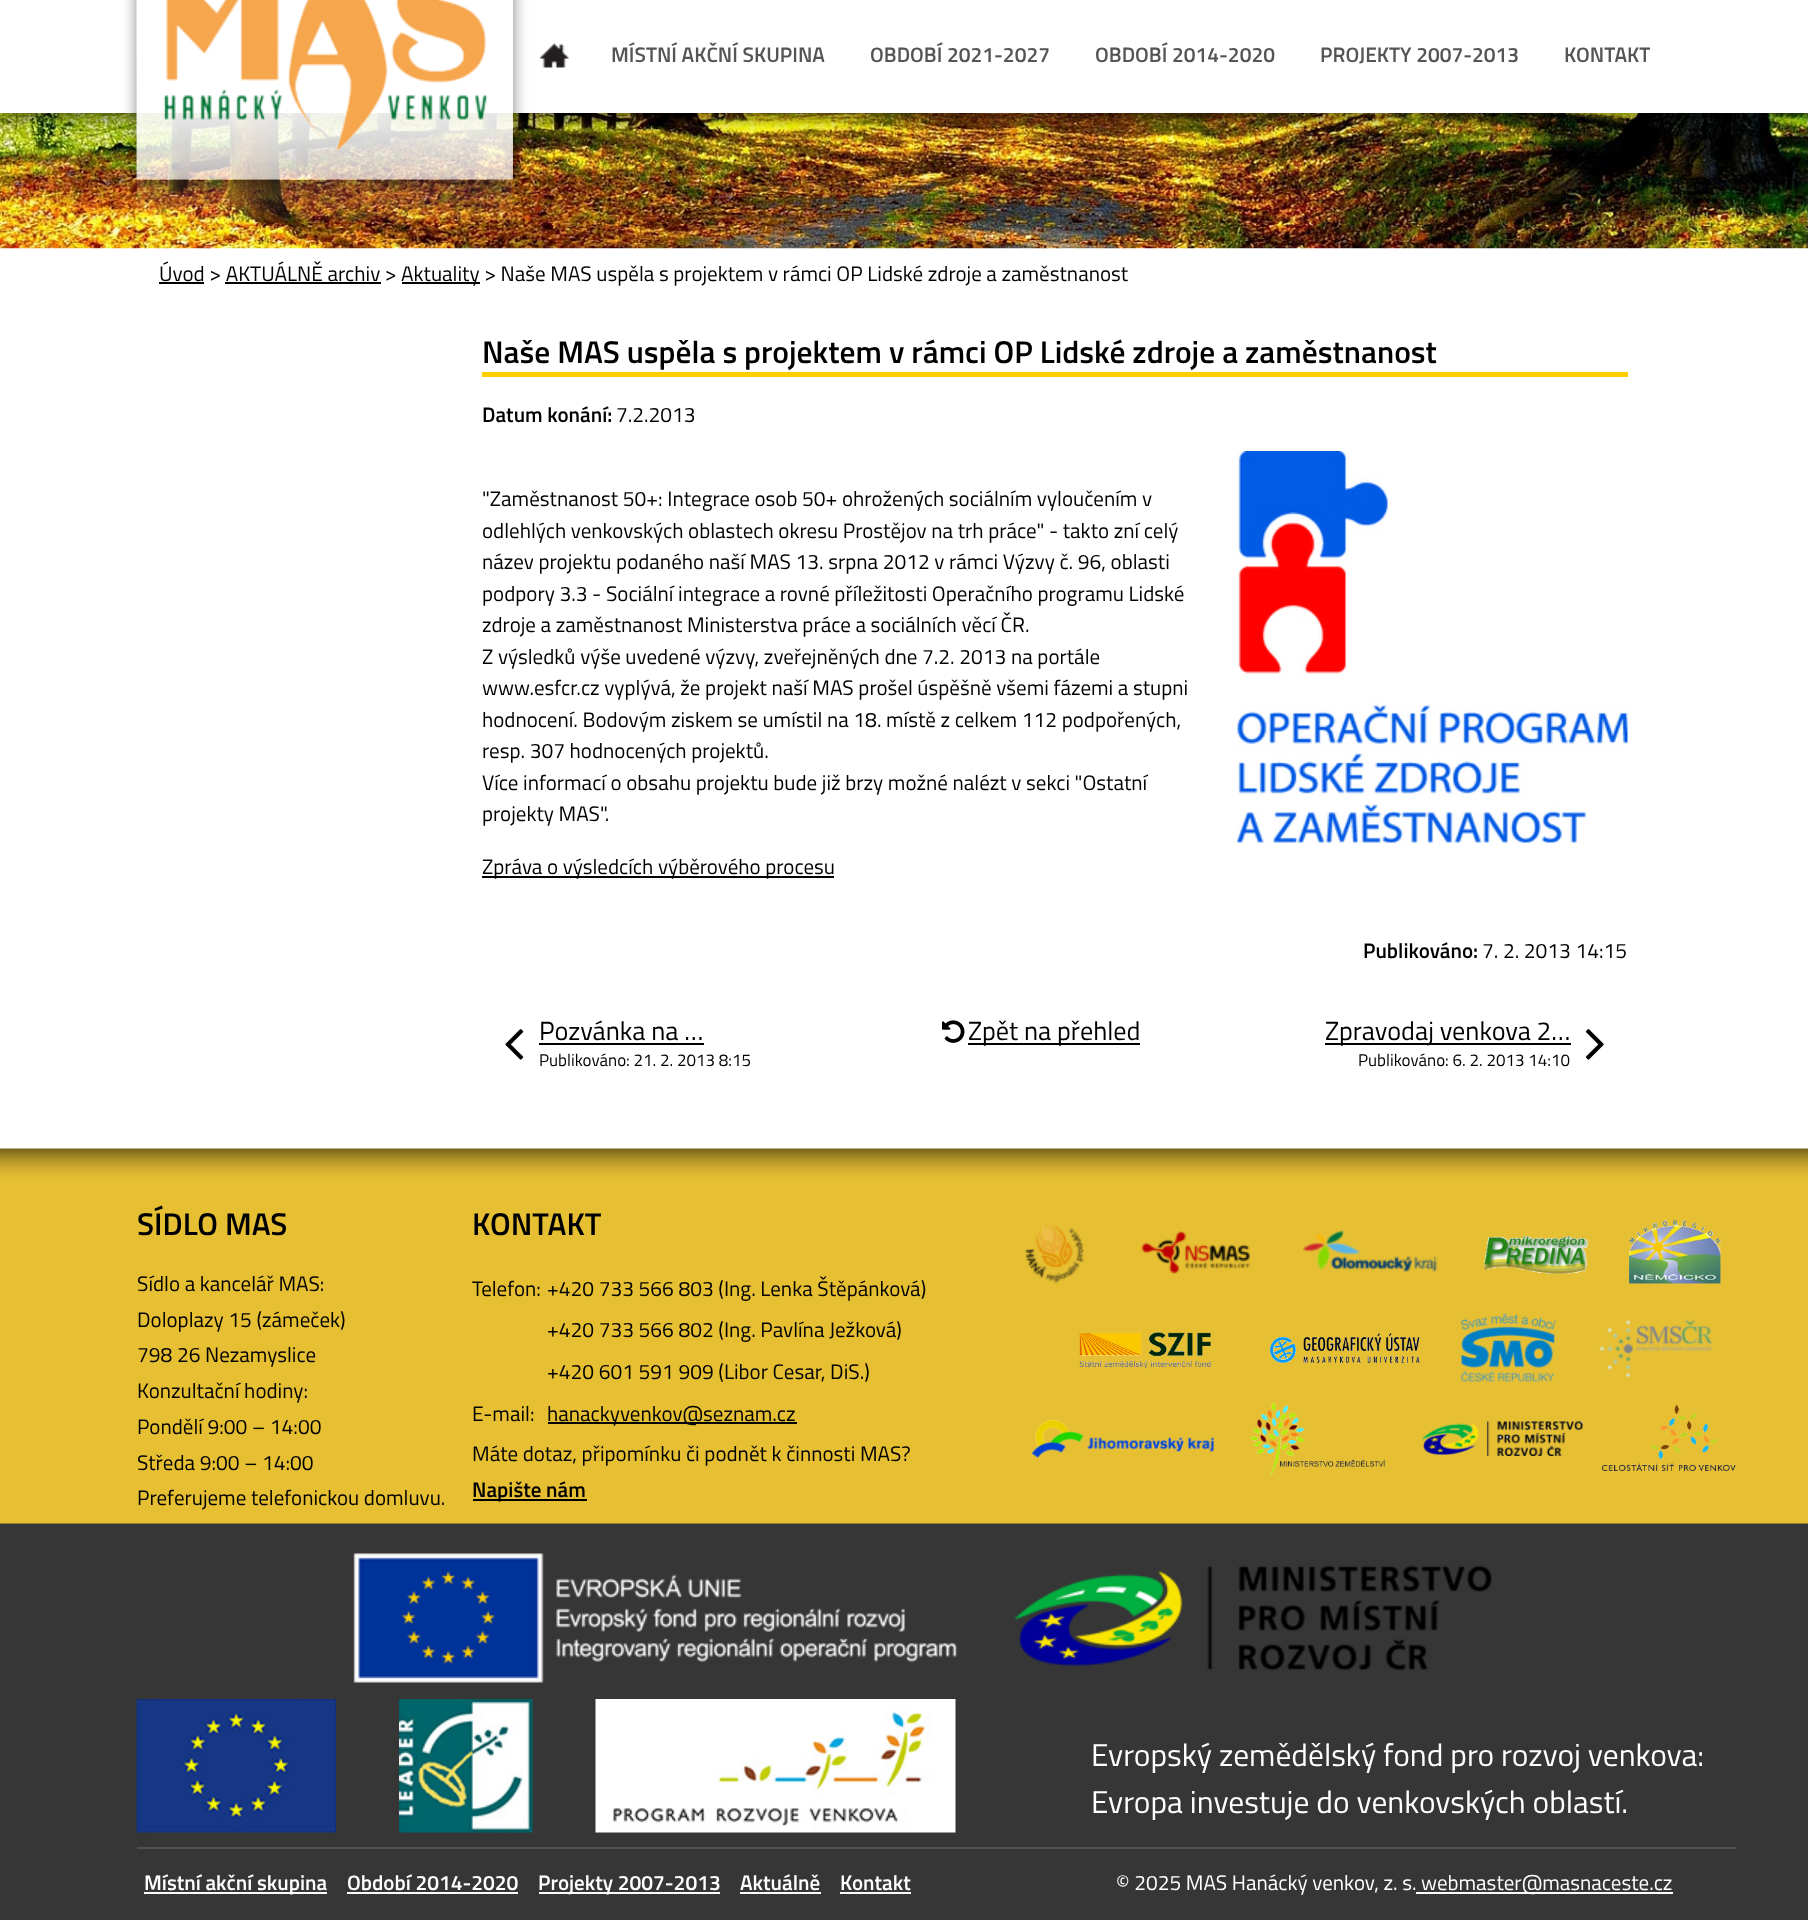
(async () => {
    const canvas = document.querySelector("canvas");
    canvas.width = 1808;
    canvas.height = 1920;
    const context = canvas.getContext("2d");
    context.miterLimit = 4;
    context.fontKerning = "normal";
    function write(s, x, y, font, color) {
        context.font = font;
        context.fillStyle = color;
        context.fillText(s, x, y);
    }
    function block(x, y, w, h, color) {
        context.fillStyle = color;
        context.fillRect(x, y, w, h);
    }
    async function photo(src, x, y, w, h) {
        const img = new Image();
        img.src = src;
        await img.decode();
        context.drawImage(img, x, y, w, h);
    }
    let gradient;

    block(0, 0, 1808, 1920, "rgb(255, 255, 255)");
    await photo("media/1.png", 0, 1148, 1808, 772);
    await photo("media/4.png", 0, 113, 1808, 136);
    context.fillStyle = "rgba(0, 0, 0, 0.5)";
    context.filter = "blur(7.5px)";
    context.beginPath();
    context.rect(0, 6, 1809, 113);
    context.fill();
    context.filter = "none";
    gradient = context.createLinearGradient(324, -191, 324, 230);
    gradient.addColorStop(0, "rgb(255, 255, 255)");
    gradient.addColorStop(1, "rgba(255, 255, 255, 0)");
    context.fillStyle = gradient;
    context.fillRect(137, 113, 375, 108);
    block(0, 0, 1808, 113, "rgb(255, 255, 255)");
    context.save();
    context.beginPath();
    context.moveTo(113, 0);
    context.lineTo(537, 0);
    context.lineTo(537, 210);
    context.lineTo(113, 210);
    context.closePath();
    context.moveTo(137, -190);
    context.lineTo(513, -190);
    context.lineTo(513, 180);
    context.lineTo(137, 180);
    context.closePath();
    context.clip("evenodd");
    context.fillStyle = "rgba(0, 0, 0, 0.5)";
    context.filter = "blur(7.5px)";
    context.beginPath();
    context.rect(137, -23, 376, 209);
    context.fill();
    context.filter = "none";
    context.restore();
    await photo("media/2.png", 136, 0, 377, 180);
    await photo("media/3.png", 539, 43, 30, 25);
    write("MÍSTNÍ AKČNÍ SKUPINA", 611, 62, "600 21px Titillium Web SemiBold", "rgb(85, 85, 85)");
    write("OBDOBÍ 2021-2027", 870, 62, "600 21px Titillium Web SemiBold", "rgb(85, 85, 85)");
    write("OBDOBÍ 2014-2020", 1095, 62, "600 21px Titillium Web SemiBold", "rgb(85, 85, 85)");
    write("PROJEKTY 2007-2013", 1320, 62, "600 21px Titillium Web SemiBold", "rgb(85, 85, 85)");
    write("KONTAKT", 1564, 62, "600 21px Titillium Web SemiBold", "rgb(85, 85, 85)");
    write("Úvod > AKTUÁLNĚ archiv >", 159, 281, "21px Titillium Web", "rgb(0, 0, 0)");
    block(159, 282, 45, 2, "rgb(0, 0, 0)");
    block(402, 282, 78, 2, "rgb(0, 0, 0)");
    write("Aktuality > Naše MAS uspěla s projektem v rámci OP Lidské zdroje a zaměstnanost", 401, 281, "21px Titillium Web", "rgb(0, 0, 0)");
    block(225, 282, 156, 2, "rgb(0, 0, 0)");
    block(482, 372, 1146, 5, "rgb(254, 206, 0)");
    write("Naše MAS uspěla s projektem v rámci OP Lidské zdroje a zaměstnanost", 482, 363, "600 31.5px Titillium Web SemiBold", "rgb(0, 0, 0)");
    write("Datum konání:", 482, 422, "600 21px Titillium Web SemiBold", "rgb(0, 0, 0)");
    write("7.2.2013", 616, 422, "21px Titillium Web", "rgb(0, 0, 0)");
    write("\"Zaměstnanost 50+: Integrace osob 50+ ohrožených sociálním vyloučením v", 482, 506, "21px Titillium Web", "rgb(0, 0, 0)");
    await photo("media/5.png", 1237, 451, 391, 392);
    write("odlehlých venkovských oblastech okresu Prostějov na trh práce\" - takto zní celý", 482, 538, "21px Titillium Web", "rgb(0, 0, 0)");
    write("název projektu podaného naší MAS 13. srpna 2012 v rámci Výzvy č. 96, oblasti", 482, 569, "21px Titillium Web", "rgb(0, 0, 0)");
    write("podpory 3.3 - Sociální integrace a rovné příležitosti Operačního programu Lidské", 482, 601, "21px Titillium Web", "rgb(0, 0, 0)");
    write("zdroje a zaměstnanost Ministerstva práce a sociálních věcí ČR.", 482, 632, "21px Titillium Web", "rgb(0, 0, 0)");
    write("Z výsledků výše uvedené výzvy, zveřejněných dne 7.2. 2013 na portále", 482, 664, "21px Titillium Web", "rgb(0, 0, 0)");
    write("www.esfcr.cz vyplývá, že projekt naší MAS prošel úspěšně všemi fázemi a stupni", 482, 695, "21px Titillium Web", "rgb(0, 0, 0)");
    write("hodnocení. Bodovým ziskem se umístil na 18. místě z celkem 112 podpořených,", 482, 727, "21px Titillium Web", "rgb(0, 0, 0)");
    write("resp. 307 hodnocených projektů.", 482, 758, "21px Titillium Web", "rgb(0, 0, 0)");
    write("Více informací o obsahu projektu bude již brzy možné nalézt v sekci \"Ostatní", 482, 790, "21px Titillium Web", "rgb(0, 0, 0)");
    write("projekty MAS\".", 482, 821, "21px Titillium Web", "rgb(0, 0, 0)");
    block(482, 876, 352, 2, "rgb(0, 0, 0)");
    write("Zpráva o výsledcích výběrového procesu", 482, 874, "21px Titillium Web", "rgb(0, 0, 0)");
    write("Publikováno:", 1363, 958, "600 21px Titillium Web SemiBold", "rgb(0, 0, 0)");
    write("7. 2. 2013 14:15", 1482, 958, "21px Titillium Web", "rgb(0, 0, 0)");
    await photo("media/6.png", 505, 1029, 19, 31);
    write("Pozvánka na …", 539, 1040, "26.25px Titillium Web", "rgb(0, 0, 0)");
    block(539, 1043, 165, 2, "rgb(0, 0, 0)");
    write("Publikováno: 21. 2. 2013 8:15", 539, 1066, "17px Titillium Web", "rgb(0, 0, 0)");
    await photo("media/7.png", 942, 1020, 23, 23);
    block(968, 1043, 172, 2, "rgb(0, 0, 0)");
    write("Zpět na přehled", 968, 1040, "26.25px Titillium Web", "rgb(0, 0, 0)");
    block(1325, 1043, 246, 2, "rgb(0, 0, 0)");
    write("Zpravodaj venkova 2…", 1325, 1040, "26.25px Titillium Web", "rgb(0, 0, 0)");
    write("Publikováno: 6. 2. 2013 14:10", 1358, 1066, "17px Titillium Web", "rgb(0, 0, 0)");
    await photo("media/8.png", 1585, 1029, 19, 31);
    write("SÍDLO MAS", 137, 1235, "600 31.5px Titillium Web SemiBold", "rgb(0, 0, 0)");
    write("Sídlo a kancelář MAS:", 137, 1291, "21px Titillium Web", "rgb(0, 0, 0)");
    write("Doloplazy 15 (zámeček)", 137, 1327, "21px Titillium Web", "rgb(0, 0, 0)");
    write("798 26 Nezamyslice", 137, 1362, "21px Titillium Web", "rgb(0, 0, 0)");
    write("Konzultační hodiny:", 137, 1398, "21px Titillium Web", "rgb(0, 0, 0)");
    write("Pondělí 9:00 – 14:00", 137, 1434, "21px Titillium Web", "rgb(0, 0, 0)");
    write("Středa 9:00 – 14:00", 137, 1470, "21px Titillium Web", "rgb(0, 0, 0)");
    write("Preferujeme telefonickou domluvu.", 137, 1505, "21px Titillium Web", "rgb(0, 0, 0)");
    write("KONTAKT", 472, 1235, "600 31.5px Titillium Web SemiBold", "rgb(0, 0, 0)");
    write("Telefon:", 472, 1296, "21px Titillium Web", "rgb(0, 0, 0)");
    write("+420 733 566 803 (Ing. Lenka Štěpánková)", 547, 1296, "21px Titillium Web", "rgb(0, 0, 0)");
    write("+420 733 566 802 (Ing. Pavlína Ježková)", 547, 1337, "21px Titillium Web", "rgb(0, 0, 0)");
    write("+420 601 591 909 (Libor Cesar, DiS.)", 547, 1379, "21px Titillium Web", "rgb(0, 0, 0)");
    write("E-mail:", 472, 1421, "21px Titillium Web", "rgb(0, 0, 0)");
    block(548, 1422, 249, 2, "rgb(0, 0, 0)");
    write("hanackyvenkov@seznam.cz", 547, 1421, "21px Titillium Web", "rgb(0, 0, 0)");
    write("Máte dotaz, připomínku či podnět k činnosti MAS?", 472, 1461, "21px Titillium Web", "rgb(0, 0, 0)");
    block(473, 1499, 114, 2, "rgb(0, 0, 0)");
    write("Napište nám", 472, 1497, "600 21px Titillium Web SemiBold", "rgb(0, 0, 0)");
    await photo("media/9.png", 1024, 1224, 61, 60);
    await photo("media/10.png", 1141, 1231, 110, 43);
    await photo("media/11.png", 1302, 1230, 136, 42);
    await photo("media/12.png", 1480, 1235, 110, 40);
    await photo("media/13.png", 1629, 1220, 92, 64);
    await photo("media/14.png", 1079, 1332, 132, 37);
    await photo("media/15.png", 1269, 1333, 151, 31);
    await photo("media/16.png", 1460, 1313, 97, 69);
    await photo("media/17.png", 1599, 1319, 114, 59);
    await photo("media/18.png", 1032, 1420, 182, 38);
    await photo("media/19.png", 1249, 1402, 136, 75);
    await photo("media/20.png", 1422, 1421, 161, 35);
    await photo("media/21.png", 1602, 1405, 134, 66);
    block(137, 1847, 1599, 2, "rgb(81, 81, 81)");
    await photo("media/22.png", 353, 1553, 1139, 130);
    await photo("media/23.png", 136, 1699, 200, 134);
    await photo("media/24.png", 399, 1699, 134, 134);
    await photo("media/25.png", 595, 1699, 361, 134);
    write("Evropský zemědělský fond pro rozvoj venkova:", 1091, 1766, "31.5px Titillium Web", "rgb(255, 255, 255)");
    write("Evropa investuje do venkovských oblastí.", 1091, 1813, "31.5px Titillium Web", "rgb(255, 255, 255)");
    block(144, 1892, 183, 2, "rgb(255, 255, 255)");
    write("Místní akční skupina", 144, 1890, "600 21px Titillium Web SemiBold", "rgb(255, 255, 255)");
    write("Období 2014-2020", 347, 1890, "600 21px Titillium Web SemiBold", "rgb(255, 255, 255)");
    block(347, 1892, 171, 2, "rgb(255, 255, 255)");
    block(539, 1892, 181, 2, "rgb(255, 255, 255)");
    write("Projekty 2007-2013", 538, 1890, "600 21px Titillium Web SemiBold", "rgb(255, 255, 255)");
    write("Aktuálně", 740, 1890, "600 21px Titillium Web SemiBold", "rgb(255, 255, 255)");
    block(740, 1892, 81, 2, "rgb(255, 255, 255)");
    write("Kontakt", 840, 1890, "600 21px Titillium Web SemiBold", "rgb(255, 255, 255)");
    block(840, 1892, 71, 2, "rgb(255, 255, 255)");
    write("© 2025 MAS Hanácký venkov, z. s.", 1116, 1890, "21px Titillium Web", "rgb(255, 255, 255)");
    block(1416, 1892, 257, 2, "rgb(255, 255, 255)");
    write("webmaster@masnaceste.cz", 1421, 1890, "21px Titillium Web", "rgb(255, 255, 255)");
})();
